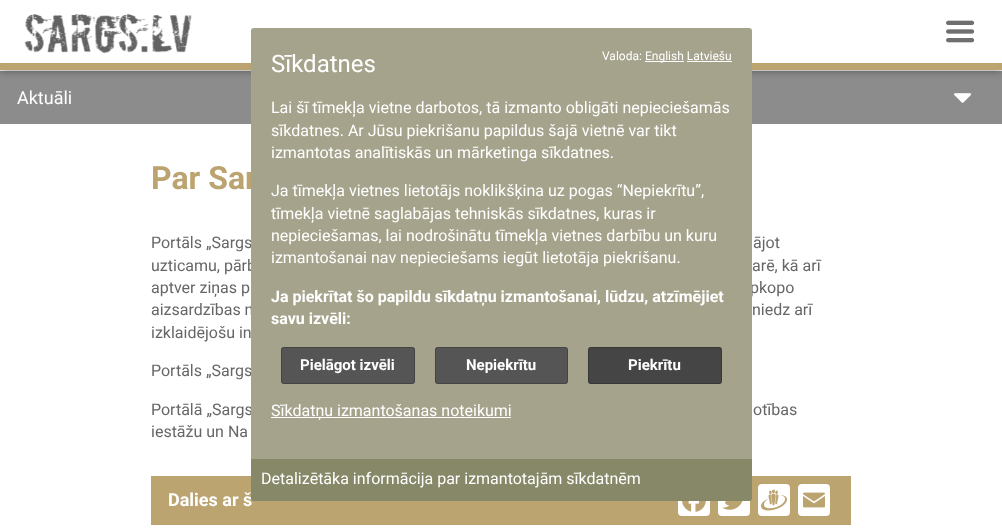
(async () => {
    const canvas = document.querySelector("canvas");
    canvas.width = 1002;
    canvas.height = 528;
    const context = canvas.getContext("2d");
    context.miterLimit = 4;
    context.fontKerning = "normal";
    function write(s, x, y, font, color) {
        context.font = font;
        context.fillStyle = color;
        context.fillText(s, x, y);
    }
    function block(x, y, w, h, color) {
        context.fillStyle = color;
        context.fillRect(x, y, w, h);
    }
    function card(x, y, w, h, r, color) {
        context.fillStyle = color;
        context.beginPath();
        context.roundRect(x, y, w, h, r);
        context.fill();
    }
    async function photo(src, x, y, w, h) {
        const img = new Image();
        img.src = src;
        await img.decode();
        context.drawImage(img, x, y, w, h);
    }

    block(0, 0, 1002, 528, "rgb(255, 255, 255)");
    block(0, 71, 1002, 53, "rgb(140, 140, 140)");
    context.fillStyle = "rgba(0, 0, 0, 0.5)";
    context.filter = "blur(4px)";
    context.beginPath();
    context.rect(0, 0, 1002, 70);
    context.fill();
    context.filter = "none";
    block(0, 0, 1002, 63, "rgb(255, 255, 255)");
    block(0, 63, 1002, 7, "rgb(188, 164, 113)");
    write("Par Sar", 151, 189, "bold 32px Roboto", "rgb(188, 164, 113)");
    write("Portāls „Sargs", 151, 248, "16px Roboto", "rgb(102, 102, 102)");
    write("uzticamu, pārb", 151, 271, "16px Roboto", "rgb(102, 102, 102)");
    write("pkopo", 750, 293, "16px Roboto", "rgb(102, 102, 102)");
    write("aizsardzības n", 151, 315, "16px Roboto", "rgb(102, 102, 102)");
    write("Portāls „Sargs", 151, 376, "16px Roboto", "rgb(102, 102, 102)");
    write("Portālā „Sargs", 151, 415, "16px Roboto", "rgb(102, 102, 102)");
    block(151, 476, 700, 49, "rgb(188, 164, 113)");
    write("Dalies ar š", 168, 506, "bold 18px Roboto", "rgb(255, 255, 255)");
    card(678, 484, 32, 32, 4, "rgb(255, 255, 255)");
    card(718, 484, 32, 32, 4, "rgb(255, 255, 255)");
    card(251, 28, 501, 473, 3, "rgb(165, 163, 140)");
    write("Sīkdatnes", 271, 72, "24px Roboto", "rgb(255, 255, 255)");
    write("Valoda:", 602, 60, "12px Roboto", "rgb(255, 255, 255)");
    block(645, 61, 39, 1, "rgb(255, 255, 255)");
    write("English Latviešu", 645, 60, "12px Roboto", "rgb(255, 255, 255)");
    block(687, 61, 45, 1, "rgb(255, 255, 255)");
    write("Lai šī tīmekļa vietne darbotos, tā izmanto obligāti nepieciešamās", 271, 113, "16px Roboto", "rgb(255, 255, 255)");
    write("sīkdatnes. Ar Jūsu piekrišanu papildus šajā vietnē var tikt", 271, 136, "16px Roboto", "rgb(255, 255, 255)");
    write("izmantotas analītiskās un mārketinga sīkdatnes.", 271, 158, "16px Roboto", "rgb(255, 255, 255)");
    write("Ja tīmekļa vietnes lietotājs noklikšķina uz pogas “Nepiekrītu”,", 271, 196, "16px Roboto", "rgb(255, 255, 255)");
    write("tīmekļa vietnē saglabājas tehniskās sīkdatnes, kuras ir", 271, 219, "16px Roboto", "rgb(255, 255, 255)");
    write("nepieciešamas, lai nodrošinātu tīmekļa vietnes darbību un kuru", 271, 241, "16px Roboto", "rgb(255, 255, 255)");
    write("izmantošanai nav nepieciešams iegūt lietotāja piekrišanu.", 271, 263, "16px Roboto", "rgb(255, 255, 255)");
    write("Ja piekrītat šo papildu sīkdatņu izmantošanai, lūdzu, atzīmējiet", 271, 302, "bold 16px Roboto", "rgb(255, 255, 255)");
    write("savu izvēli:", 271, 324, "bold 16px Roboto", "rgb(255, 255, 255)");
    card(281, 347, 134, 37, 3, "rgb(85, 85, 85)");
    context.beginPath();
    context.roundRect(281.5, 347.5, 133, 36, 2.5);
    context.strokeStyle = "rgba(0, 0, 0, 0.2)";
    context.stroke();
    write("Pielāgot izvēli", 300, 370, "bold 15px Roboto", "rgb(255, 255, 255)");
    card(435, 347, 133, 37, 3, "rgb(85, 85, 85)");
    context.beginPath();
    context.roundRect(435.5, 347.5, 132, 36, 2.5);
    context.stroke();
    write("Nepiekrītu", 466, 370, "bold 15px Roboto", "rgb(255, 255, 255)");
    card(588, 347, 134, 37, 3, "rgb(69, 69, 69)");
    context.beginPath();
    context.roundRect(588.5, 347.5, 133, 36, 2.5);
    context.stroke();
    write("Piekrītu", 628, 370, "bold 15px Roboto", "rgb(255, 255, 255)");
    block(271, 417, 240, 1, "rgb(255, 255, 255)");
    write("Sīkdatņu izmantošanas noteikumi", 271, 416, "16px Roboto", "rgb(255, 255, 255)");
    context.fillStyle = "rgb(134, 136, 104)";
    context.beginPath();
    context.roundRect(251, 459, 501, 42, [0, 0, 3, 3]);
    context.fill();
    write("Detalizētāka informācija par izmantotajām sīkdatnēm", 261, 484, "16px Roboto", "rgb(255, 255, 255)");
    await photo("media/1.png", 24, 14, 168, 40);
    await photo("media/2.png", 946, 20, 29, 23);
    write("Aktuāli", 17, 104, "18px Roboto", "rgb(255, 255, 255)");
    await photo("media/3.png", 954, 93, 18, 10);
    write("ājot", 753, 248, "16px Roboto", "rgb(102, 102, 102)");
    write("arē, kā arī", 752, 271, "16px Roboto", "rgb(102, 102, 102)");
    write("aptver ziņas p", 151, 293, "16px Roboto", "rgb(102, 102, 102)");
    write("niedz arī", 752, 315, "16px Roboto", "rgb(102, 102, 102)");
    write("izklaidējošu in", 151, 338, "16px Roboto", "rgb(102, 102, 102)");
    write("otības", 753, 415, "16px Roboto", "rgb(102, 102, 102)");
    write("iestāžu un Na", 151, 437, "16px Roboto", "rgb(102, 102, 102)");
    await photo("media/4.png", 682, 501, 24, 11);
    await photo("media/5.png", 722, 501, 21, 9);
    card(758, 484, 32, 32, 4, "rgb(255, 255, 255)");
    await photo("media/6.png", 761, 489, 26, 22);
    card(798, 484, 32, 32, 4, "rgb(255, 255, 255)");
    await photo("media/7.png", 803, 492, 22, 16);
})();
